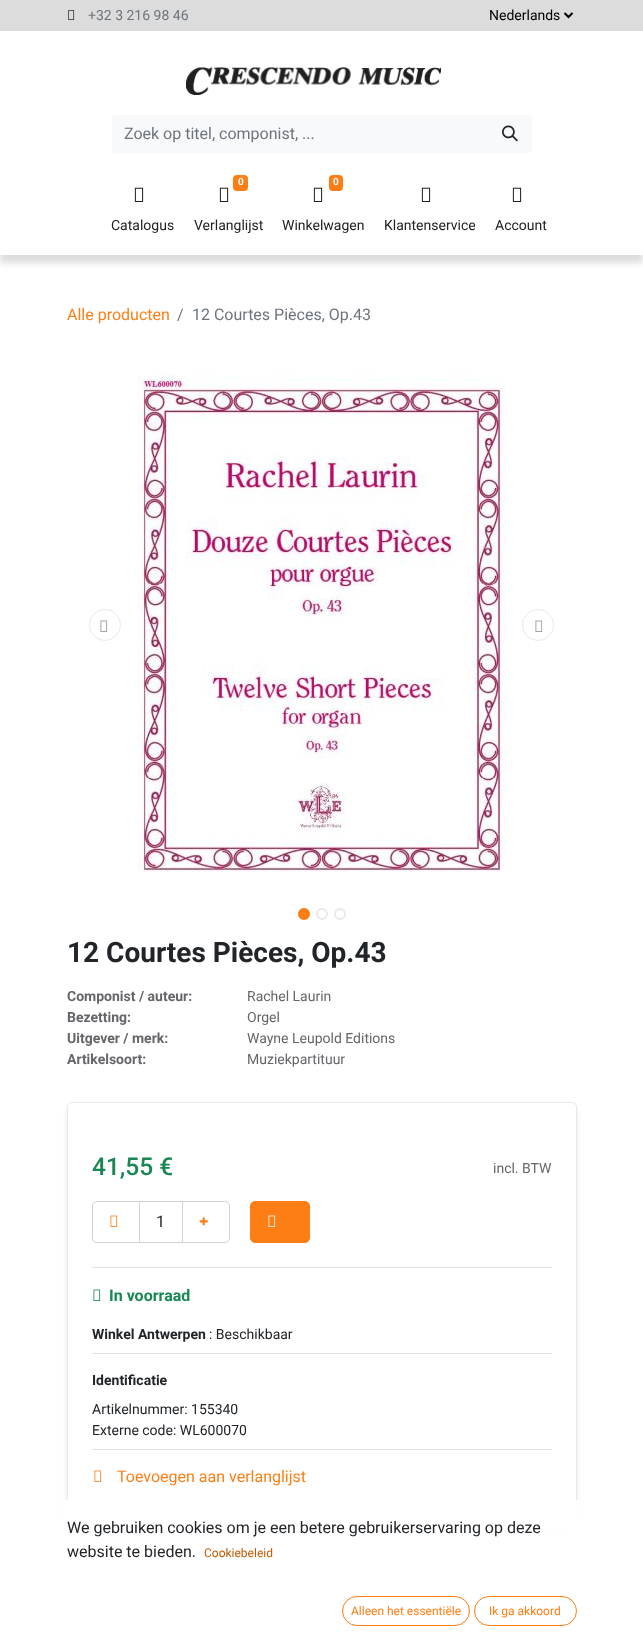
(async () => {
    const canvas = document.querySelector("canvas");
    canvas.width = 643;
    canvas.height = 1642;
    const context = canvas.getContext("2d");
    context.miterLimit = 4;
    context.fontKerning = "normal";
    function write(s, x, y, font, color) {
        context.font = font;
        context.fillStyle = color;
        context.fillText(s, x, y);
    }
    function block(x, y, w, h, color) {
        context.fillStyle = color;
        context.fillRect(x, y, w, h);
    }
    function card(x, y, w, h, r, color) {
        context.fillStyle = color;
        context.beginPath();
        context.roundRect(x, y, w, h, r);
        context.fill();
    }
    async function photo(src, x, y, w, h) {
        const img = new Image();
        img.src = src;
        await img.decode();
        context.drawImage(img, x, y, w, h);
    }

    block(0, 0, 643, 1642, "rgb(255, 255, 255)");
    block(0, 0, 643, 31, "rgb(220, 220, 220)");
    await photo("media/1.png", 68, 10, 7, 10);
    write("+32 3 216 98 46", 88, 20, "14px Roboto", "rgb(108, 117, 125)");
    context.beginPath();
    context.moveTo(564.5, 13);
    context.lineTo(568.5, 17);
    context.lineTo(572.5, 13);
    context.strokeStyle = "rgb(0, 0, 0)";
    context.lineWidth = 2;
    context.stroke();
    write("Nederlands", 489, 20, "14px Roboto", "rgb(0, 0, 0)");
    context.save();
    context.beginPath();
    context.rect(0, 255, 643, 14);
    context.clip();
    context.fillStyle = "rgba(199, 199, 199, 0.62)";
    context.filter = "blur(3px)";
    context.beginPath();
    context.rect(0, 39, 643, 224);
    context.fill();
    context.filter = "none";
    context.restore();
    await photo("media/2.png", 186, 67, 255, 28);
    context.fillStyle = "rgb(248, 249, 250)";
    context.beginPath();
    context.roundRect(112, 115, 378, 38, [4, 0, 0, 4]);
    context.fill();
    write("Zoek op titel, componist, ...", 124, 139, "16px Roboto", "rgb(108, 117, 125)");
    context.fillStyle = "rgb(248, 249, 250)";
    context.beginPath();
    context.roundRect(489, 115, 43, 38, [0, 4, 4, 0]);
    context.fill();
    await photo("media/3.png", 502, 125, 16, 17);
    await photo("media/4.png", 134, 187, 10, 15);
    write("Catalogus", 111, 230, "14px Roboto", "rgb(34, 34, 34)");
    card(233, 175, 15, 16, 4, "rgb(253, 126, 20)");
    write("0", 238, 185, "bold 10px Roboto", "rgb(248, 249, 250)");
    await photo("media/4.png", 219, 187, 10, 15);
    write("Verlanglijst", 194, 230, "14px Roboto", "rgb(34, 34, 34)");
    card(329, 175, 14, 16, 4, "rgb(253, 126, 20)");
    write("0", 333, 185, "bold 10px Roboto", "rgb(248, 249, 250)");
    await photo("media/4.png", 313, 187, 10, 15);
    write("Winkelwagen", 282, 230, "14px Roboto", "rgb(34, 34, 34)");
    await photo("media/4.png", 421, 187, 10, 15);
    write("Klantenservice", 384, 230, "14px Roboto", "rgb(34, 34, 34)");
    await photo("media/4.png", 512, 187, 10, 15);
    write("Account", 495, 230, "14px Roboto", "rgb(34, 34, 34)");
    write("Alle producten", 67, 320, "16px Roboto", "rgb(253, 126, 20)");
    write("/", 177, 320, "16px Roboto", "rgb(108, 117, 125)");
    write("12 Courtes Pièces, Op.43", 192, 320, "16px Roboto", "rgb(108, 117, 125)");
    context.beginPath();
    context.arc(105, 625, 15.5, 0, Math.PI * 2);
    context.strokeStyle = "rgb(231, 234, 237)";
    context.lineWidth = 1;
    context.stroke();
    await photo("media/5.png", 100, 620, 8, 12);
    await photo("media/6.png", 137, 375, 369, 497);
    context.beginPath();
    context.arc(538, 625, 15.5, 0, Math.PI * 2);
    context.stroke();
    await photo("media/5.png", 535, 620, 8, 12);
    context.fillStyle = "rgb(253, 126, 20)";
    context.beginPath();
    context.arc(304, 914, 5, 0, Math.PI * 2);
    context.fill();
    context.strokeStyle = "rgb(253, 126, 20)";
    context.lineWidth = 2;
    context.stroke();
    context.beginPath();
    context.arc(322, 914, 5, 0, Math.PI * 2);
    context.strokeStyle = "rgb(231, 234, 237)";
    context.stroke();
    context.beginPath();
    context.arc(340, 914, 5, 0, Math.PI * 2);
    context.stroke();
    write("12 Courtes Pièces, Op.43", 67, 962, "bold 28px Roboto", "rgb(33, 37, 41)");
    write("Componist / auteur:", 67, 1001, "bold 14px Roboto", "rgb(100, 102, 105)");
    write("Rachel Laurin", 247, 1001, "14px Roboto", "rgb(100, 102, 105)");
    write("Bezetting:", 67, 1022, "bold 14px Roboto", "rgb(100, 102, 105)");
    write("Orgel", 247, 1022, "14px Roboto", "rgb(100, 102, 105)");
    write("Uitgever / merk:", 67, 1043, "bold 14px Roboto", "rgb(100, 102, 105)");
    write("Wayne Leupold Editions", 247, 1043, "14px Roboto", "rgb(100, 102, 105)");
    write("Artikelsoort:", 67, 1064, "bold 14px Roboto", "rgb(100, 102, 105)");
    write("Muziekpartituur", 247, 1064, "14px Roboto", "rgb(100, 102, 105)");
    context.save();
    context.beginPath();
    context.moveTo(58, 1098);
    context.lineTo(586, 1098);
    context.lineTo(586, 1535);
    context.lineTo(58, 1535);
    context.closePath();
    context.moveTo(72, 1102);
    context.lineTo(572, 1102);
    context.bezierCurveTo(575, 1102, 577, 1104, 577, 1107);
    context.lineTo(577, 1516);
    context.bezierCurveTo(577, 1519, 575, 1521, 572, 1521);
    context.lineTo(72, 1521);
    context.bezierCurveTo(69, 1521, 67, 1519, 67, 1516);
    context.lineTo(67, 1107);
    context.bezierCurveTo(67, 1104, 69, 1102, 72, 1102);
    context.closePath();
    context.clip("evenodd");
    context.fillStyle = "rgba(199, 199, 199, 0.42)";
    context.filter = "blur(2.5px)";
    context.beginPath();
    context.roundRect(67, 1107, 510, 419, 5);
    context.fill();
    context.filter = "none";
    context.restore();
    context.beginPath();
    context.roundRect(67.5, 1102.5, 509, 418, 4.5);
    context.strokeStyle = "rgba(199, 199, 199, 0.42)";
    context.lineWidth = 1;
    context.stroke();
    write("41,55 €", 92, 1175, "500 24.5px Roboto", "rgb(25, 135, 84)");
    write("incl. BTW", 493, 1173, "14px Roboto", "rgb(100, 102, 105)");
    context.strokeStyle = "rgb(206, 212, 218)";
    context.strokeRect(139.5, 1201.5, 43, 41);
    context.beginPath();
    context.roundRect(92.5, 1201.5, 47, 41, [4.5, 0, 0, 4.5]);
    context.stroke();
    await photo("media/7.png", 110, 1215, 8, 12);
    write("1", 156, 1227, "16px Roboto", "rgb(33, 37, 41)");
    context.beginPath();
    context.roundRect(182.5, 1201.5, 47, 41, [0, 4.5, 4.5, 0]);
    context.stroke();
    write("+", 199, 1227, "900 16px Noto Sans", "rgb(253, 126, 20)");
    context.beginPath();
    context.roundRect(250.5, 1201.5, 59, 41, 4.5);
    context.fill();
    context.strokeStyle = "rgb(253, 126, 20)";
    context.stroke();
    await photo("media/8.png", 268, 1215, 8, 12);
    block(92, 1267, 460, 1, "rgb(222, 226, 230)");
    await photo("media/9.png", 93, 1289, 8, 12);
    write("In voorraad", 109, 1301, "bold 16px Roboto", "rgb(25, 135, 84)");
    write("Winkel Antwerpen", 92, 1339, "bold 14px Roboto", "rgb(33, 37, 41)");
    write(": Beschikbaar", 209, 1339, "14px Roboto", "rgb(33, 37, 41)");
    block(92, 1353, 460, 1, "rgb(222, 226, 230)");
    write("Identificatie", 92, 1385, "bold 14px Roboto", "rgb(33, 37, 41)");
    write("Artikelnummer: 155340", 92, 1414, "14px Roboto", "rgb(33, 37, 41)");
    write("Externe code: WL600070", 92, 1435, "14px Roboto", "rgb(33, 37, 41)");
    block(92, 1449, 460, 1, "rgb(222, 226, 230)");
    await photo("media/7.png", 94, 1470, 8, 12);
    write("Toevoegen aan verlanglijst", 117, 1482, "16px Roboto", "rgb(253, 126, 20)");
    block(64, 1500, 516, 29, "rgb(255, 255, 255)");
    write("We gebruiken cookies om je een betere gebruikerservaring op deze", 67, 1533, "16px Roboto", "rgb(33, 37, 41)");
    write("website te bieden.", 67, 1557, "16px Roboto", "rgb(33, 37, 41)");
    write("Cookiebeleid", 204, 1557, "12px Roboto", "rgb(195, 90, 2)");
    context.beginPath();
    context.roundRect(342.5, 1596.5, 127, 29, 14.5);
    context.stroke();
    write("Alleen het essentiële", 351, 1615, "12px Roboto", "rgb(253, 126, 20)");
    context.beginPath();
    context.roundRect(474.5, 1596.5, 102, 29, 14.5);
    context.stroke();
    write("Ik ga akkoord", 489, 1615, "12px Roboto", "rgb(253, 126, 20)");
})();
